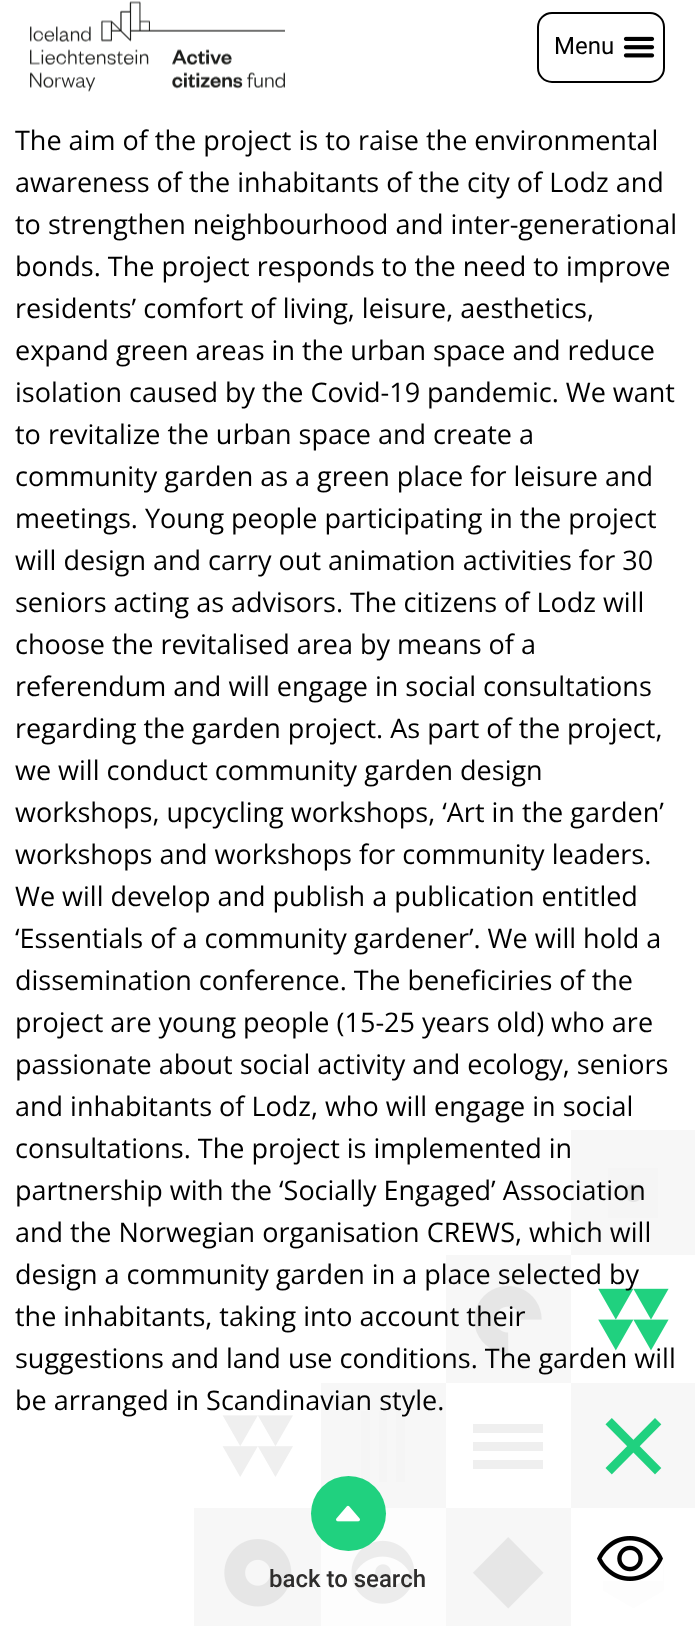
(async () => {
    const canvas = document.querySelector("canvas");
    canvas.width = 695;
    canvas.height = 1626;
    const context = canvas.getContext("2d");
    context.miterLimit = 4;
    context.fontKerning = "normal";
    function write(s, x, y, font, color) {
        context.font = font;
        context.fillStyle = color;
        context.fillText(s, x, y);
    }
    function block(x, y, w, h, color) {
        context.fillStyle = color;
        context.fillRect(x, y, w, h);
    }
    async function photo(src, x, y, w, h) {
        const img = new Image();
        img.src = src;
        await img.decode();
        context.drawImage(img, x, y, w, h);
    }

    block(0, 0, 695, 1626, "rgb(255, 255, 255)");
    await photo("media/1.png", 30, 1, 255, 91);
    context.beginPath();
    context.roundRect(538, 13, 126, 69, 14);
    context.strokeStyle = "rgb(0, 0, 0)";
    context.lineWidth = 2;
    context.stroke();
    write("Menu", 554, 54, "24px Roboto", "rgb(0, 0, 0)");
    await photo("media/2.png", 623, 36, 32, 22);
    await photo("media/3.png", 194, 1130, 501, 496);
    write("The aim of the project is to raise the environmental", 15, 150, "27px Open Sans", "rgb(0, 0, 0)");
    write("awareness of the inhabitants of the city of Lodz and", 15, 192, "27px Open Sans", "rgb(0, 0, 0)");
    write("to strengthen neighbourhood and inter-generational", 15, 234, "27px Open Sans", "rgb(0, 0, 0)");
    write("bonds. The project responds to the need to improve", 15, 276, "27px Open Sans", "rgb(0, 0, 0)");
    write("residents’ comfort of living, leisure, aesthetics,", 15, 318, "27px Open Sans", "rgb(0, 0, 0)");
    write("expand green areas in the urban space and reduce", 15, 360, "27px Open Sans", "rgb(0, 0, 0)");
    write("isolation caused by the Covid-19 pandemic. We want", 15, 402, "27px Open Sans", "rgb(0, 0, 0)");
    write("to revitalize the urban space and create a", 15, 444, "27px Open Sans", "rgb(0, 0, 0)");
    write("community garden as a green place for leisure and", 15, 486, "27px Open Sans", "rgb(0, 0, 0)");
    write("meetings. Young people participating in the project", 15, 528, "27px Open Sans", "rgb(0, 0, 0)");
    write("will design and carry out animation activities for 30", 15, 570, "27px Open Sans", "rgb(0, 0, 0)");
    write("seniors acting as advisors. The citizens of Lodz will", 15, 612, "27px Open Sans", "rgb(0, 0, 0)");
    write("choose the revitalised area by means of a", 15, 654, "27px Open Sans", "rgb(0, 0, 0)");
    write("referendum and will engage in social consultations", 15, 696, "27px Open Sans", "rgb(0, 0, 0)");
    write("regarding the garden project. As part of the project,", 15, 738, "27px Open Sans", "rgb(0, 0, 0)");
    write("we will conduct community garden design", 15, 780, "27px Open Sans", "rgb(0, 0, 0)");
    write("workshops, upcycling workshops, ‘Art in the garden’", 15, 822, "27px Open Sans", "rgb(0, 0, 0)");
    write("workshops and workshops for community leaders.", 15, 864, "27px Open Sans", "rgb(0, 0, 0)");
    write("We will develop and publish a publication entitled", 15, 906, "27px Open Sans", "rgb(0, 0, 0)");
    write("‘Essentials of a community gardener’. We will hold a", 15, 948, "27px Open Sans", "rgb(0, 0, 0)");
    write("dissemination conference. The beneficiries of the", 15, 990, "27px Open Sans", "rgb(0, 0, 0)");
    write("project are young people (15-25 years old) who are", 15, 1032, "27px Open Sans", "rgb(0, 0, 0)");
    write("passionate about social activity and ecology, seniors", 15, 1074, "27px Open Sans", "rgb(0, 0, 0)");
    write("and inhabitants of Lodz, who will engage in social", 15, 1116, "27px Open Sans", "rgb(0, 0, 0)");
    write("consultations. The project is implemented in", 15, 1158, "27px Open Sans", "rgb(0, 0, 0)");
    write("partnership with the ‘Socially Engaged’ Association", 15, 1200, "27px Open Sans", "rgb(0, 0, 0)");
    write("and the Norwegian organisation CREWS, which will", 15, 1242, "27px Open Sans", "rgb(0, 0, 0)");
    write("design a community garden in a place selected by", 15, 1284, "27px Open Sans", "rgb(0, 0, 0)");
    write("the inhabitants, taking into account their", 15, 1326, "27px Open Sans", "rgb(0, 0, 0)");
    write("suggestions and land use conditions. The garden will", 15, 1368, "27px Open Sans", "rgb(0, 0, 0)");
    write("be arranged in Scandinavian style.", 15, 1410, "27px Open Sans", "rgb(0, 0, 0)");
    context.fillStyle = "rgb(32, 209, 127)";
    context.beginPath();
    context.arc(348.5, 1513.5, 37.5, 0, Math.PI * 2);
    context.fill();
    await photo("media/4.png", 336, 1505, 24, 17);
    write("back to search", 269, 1587, "500 24px Roboto", "rgb(46, 45, 44)");
    await photo("media/5.png", 597, 1536, 66, 45);
})();
